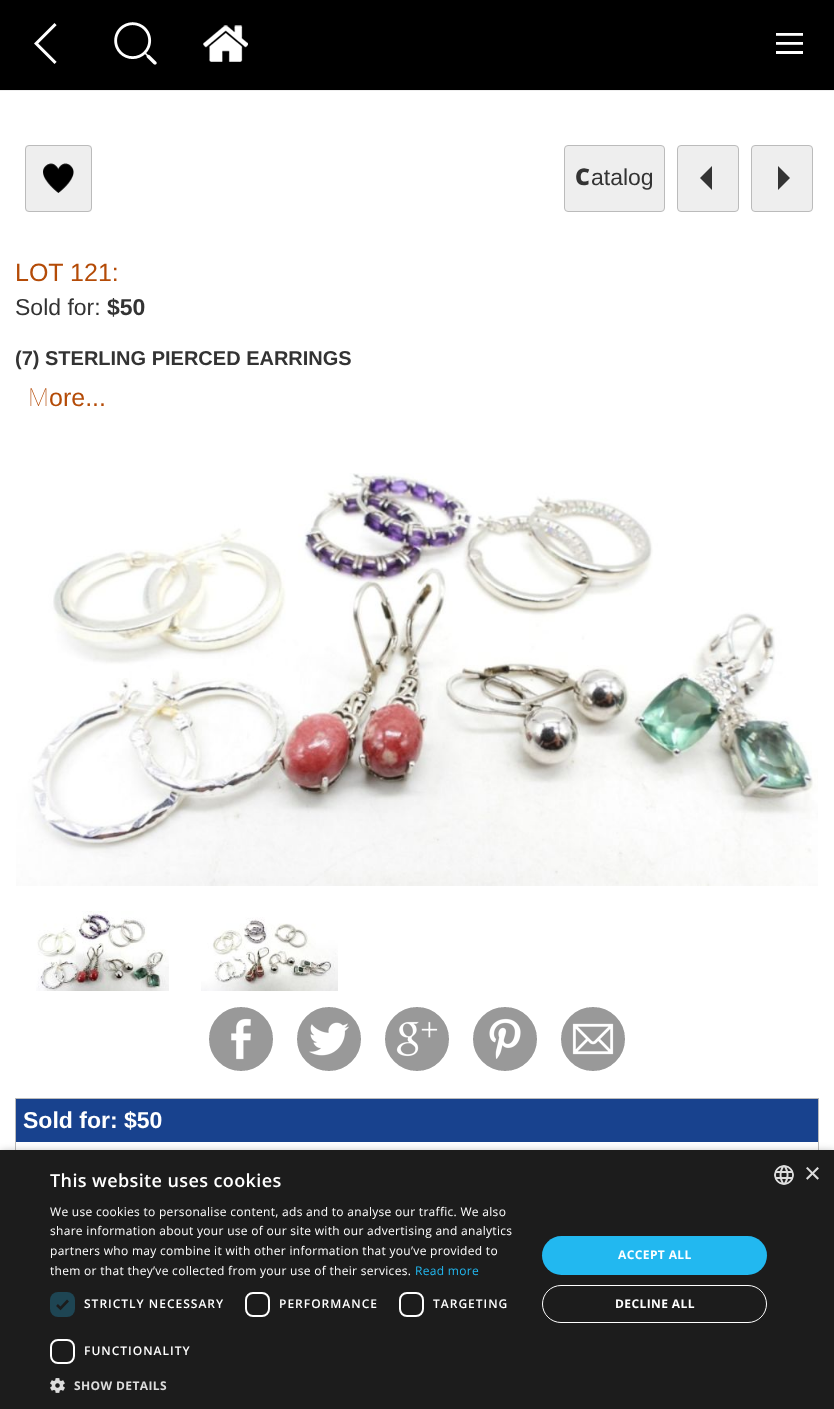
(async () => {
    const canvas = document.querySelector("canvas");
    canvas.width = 834;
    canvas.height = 1409;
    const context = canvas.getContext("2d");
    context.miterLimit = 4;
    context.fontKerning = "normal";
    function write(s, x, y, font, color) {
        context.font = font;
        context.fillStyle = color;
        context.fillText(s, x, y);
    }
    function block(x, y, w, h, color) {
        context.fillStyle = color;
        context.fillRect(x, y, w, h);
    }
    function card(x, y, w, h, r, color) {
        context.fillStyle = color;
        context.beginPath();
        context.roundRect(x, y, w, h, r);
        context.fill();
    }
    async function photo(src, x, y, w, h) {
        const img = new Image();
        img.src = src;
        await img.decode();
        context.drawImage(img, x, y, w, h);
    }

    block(0, 0, 834, 1409, "rgb(255, 255, 255)");
    block(0, 0, 834, 90, "rgb(0, 0, 0)");
    block(0, 90, 834, 1, "rgb(238, 238, 238)");
    await photo("media/1.png", 34, 23, 23, 41);
    await photo("media/2.png", 114, 22, 43, 43);
    await photo("media/3.png", 203, 25, 45, 37);
    await photo("media/4.png", 776, 33, 27, 21);
    card(25, 145, 67, 67, 4, "rgb(238, 238, 238)");
    await photo("media/5.png", 43, 163, 31, 30);
    context.beginPath();
    context.roundRect(25.5, 145.5, 66, 66, 3.5);
    context.strokeStyle = "rgb(187, 187, 187)";
    context.stroke();
    context.beginPath();
    context.roundRect(564.5, 145.5, 100, 66, 3.5);
    context.fill();
    context.stroke();
    write("C", 575, 185, "900 23px Noto Sans", "rgb(51, 51, 51)");
    write("atalog", 591, 185, "23px Liberation Sans", "rgb(51, 51, 51)");
    context.fillStyle = "rgb(238, 238, 238)";
    context.beginPath();
    context.roundRect(677.5, 145.5, 61, 66, 3.5);
    context.fill();
    context.stroke();
    context.fillStyle = "rgb(51, 51, 51)";
    context.beginPath();
    context.moveTo(712, 166);
    context.lineTo(712, 190);
    context.lineTo(700, 178);
    context.closePath();
    context.fill();
    context.fillStyle = "rgb(238, 238, 238)";
    context.beginPath();
    context.roundRect(751.5, 145.5, 61, 66, 3.5);
    context.fill();
    context.stroke();
    context.fillStyle = "rgb(51, 51, 51)";
    context.beginPath();
    context.moveTo(778, 190);
    context.lineTo(778, 166);
    context.lineTo(790, 178);
    context.closePath();
    context.fill();
    write("LOT 121:", 15, 281, "25px Liberation Sans", "rgb(180, 75, 7)");
    write("Sold for:", 15, 315, "23px Liberation Sans", "rgb(51, 51, 51)");
    write("$50", 107, 315, "bold 23px Liberation Sans", "rgb(51, 51, 51)");
    write("(7) STERLING PIERCED EARRINGS", 15, 365, "bold 20px Liberation Sans", "rgb(51, 51, 51)");
    write("M", 28, 406, "100 25px Noto Sans", "rgb(180, 75, 7)");
    write("ore...", 49, 406, "25px Liberation Sans", "rgb(180, 75, 7)");
    await photo("media/6.png", 16, 473, 802, 413);
    await photo("media/7.png", 36, 911, 133, 80);
    await photo("media/8.png", 201, 917, 137, 74);
    await photo("media/9.png", 209, 1007, 64, 64);
    await photo("media/10.png", 297, 1007, 64, 64);
    await photo("media/11.png", 385, 1007, 64, 64);
    await photo("media/12.png", 473, 1007, 64, 64);
    await photo("media/13.png", 561, 1007, 64, 64);
    context.strokeRect(15.5, 1098.5, 803, 283);
    block(16, 1099, 802, 43, "rgb(24, 66, 142)");
    write("Sold for: $50", 23, 1128, "bold 23px Liberation Sans", "rgb(255, 255, 255)");
    context.fillStyle = "rgba(0, 0, 0, 0.35)";
    context.filter = "blur(4px)";
    context.beginPath();
    context.rect(1, 1152, 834, 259);
    context.fill();
    context.filter = "none";
    block(0, 1150, 834, 259, "rgb(28, 28, 28)");
    context.letterSpacing = "0.4px";
    write("This website uses cookies", 50, 1187, "600 18px Open Sans", "rgb(255, 255, 255)");
    context.letterSpacing = "0.3px";
    write("We use cookies to personalise content, ads and to analyse our traffic. We also", 50, 1216, "12px Open Sans", "rgb(255, 255, 255)");
    write("share information about your use of our site with our advertising and analytics", 50, 1235, "12px Open Sans", "rgb(255, 255, 255)");
    write("partners who may combine it with other information that you’ve provided to", 50, 1255, "12px Open Sans", "rgb(255, 255, 255)");
    write("them or that they’ve collected from your use of their services.", 50, 1275, "12px Open Sans", "rgb(255, 255, 255)");
    write("Read more", 415, 1275, "12px Open Sans", "rgb(34, 184, 240)");
    card(50, 1292, 25, 25, 8, "rgb(30, 69, 83)");
    context.beginPath();
    context.moveTo(57, 1305);
    context.lineTo(60.5, 1308.5);
    context.lineTo(68, 1300.5);
    context.strokeStyle = "rgb(28, 28, 28)";
    context.lineWidth = 2.6;
    context.stroke();
    context.letterSpacing = "1px";
    write("STRICTLY NECESSARY", 84, 1308, "600 12px Open Sans", "rgb(255, 255, 255)");
    context.beginPath();
    context.roundRect(246, 1293, 23, 23, 7);
    context.strokeStyle = "rgb(255, 255, 255)";
    context.lineWidth = 2;
    context.stroke();
    write("PERFORMANCE", 279, 1308, "600 12px Open Sans", "rgb(255, 255, 255)");
    context.beginPath();
    context.roundRect(400, 1293, 23, 23, 7);
    context.stroke();
    write("TARGETING", 433, 1308, "600 12px Open Sans", "rgb(255, 255, 255)");
    context.beginPath();
    context.roundRect(51, 1340, 23, 23, 7);
    context.stroke();
    write("FUNCTIONALITY", 84, 1355, "600 12px Open Sans", "rgb(255, 255, 255)");
    await photo("media/14.png", 50, 1378, 15, 15);
    context.letterSpacing = "0.4px";
    write("SHOW DETAILS", 74, 1390, "bold 12px Open Sans", "rgb(221, 221, 221)");
    card(542, 1236, 225, 39, 19.5, "rgb(34, 184, 240)");
    write("ACCEPT ALL", 618, 1259, "bold 12px Open Sans", "rgb(255, 255, 255)");
    context.beginPath();
    context.roundRect(542.5, 1285.5, 224, 37, 18.5);
    context.lineWidth = 1;
    context.stroke();
    write("DECLINE ALL", 615, 1308, "bold 12px Open Sans", "rgb(255, 255, 255)");
    await photo("media/15.png", 774, 1165, 20, 20);
    context.letterSpacing = "0px";
    write("×", 804, 1183, "29px Liberation Sans", "rgb(221, 221, 221)");
})();
